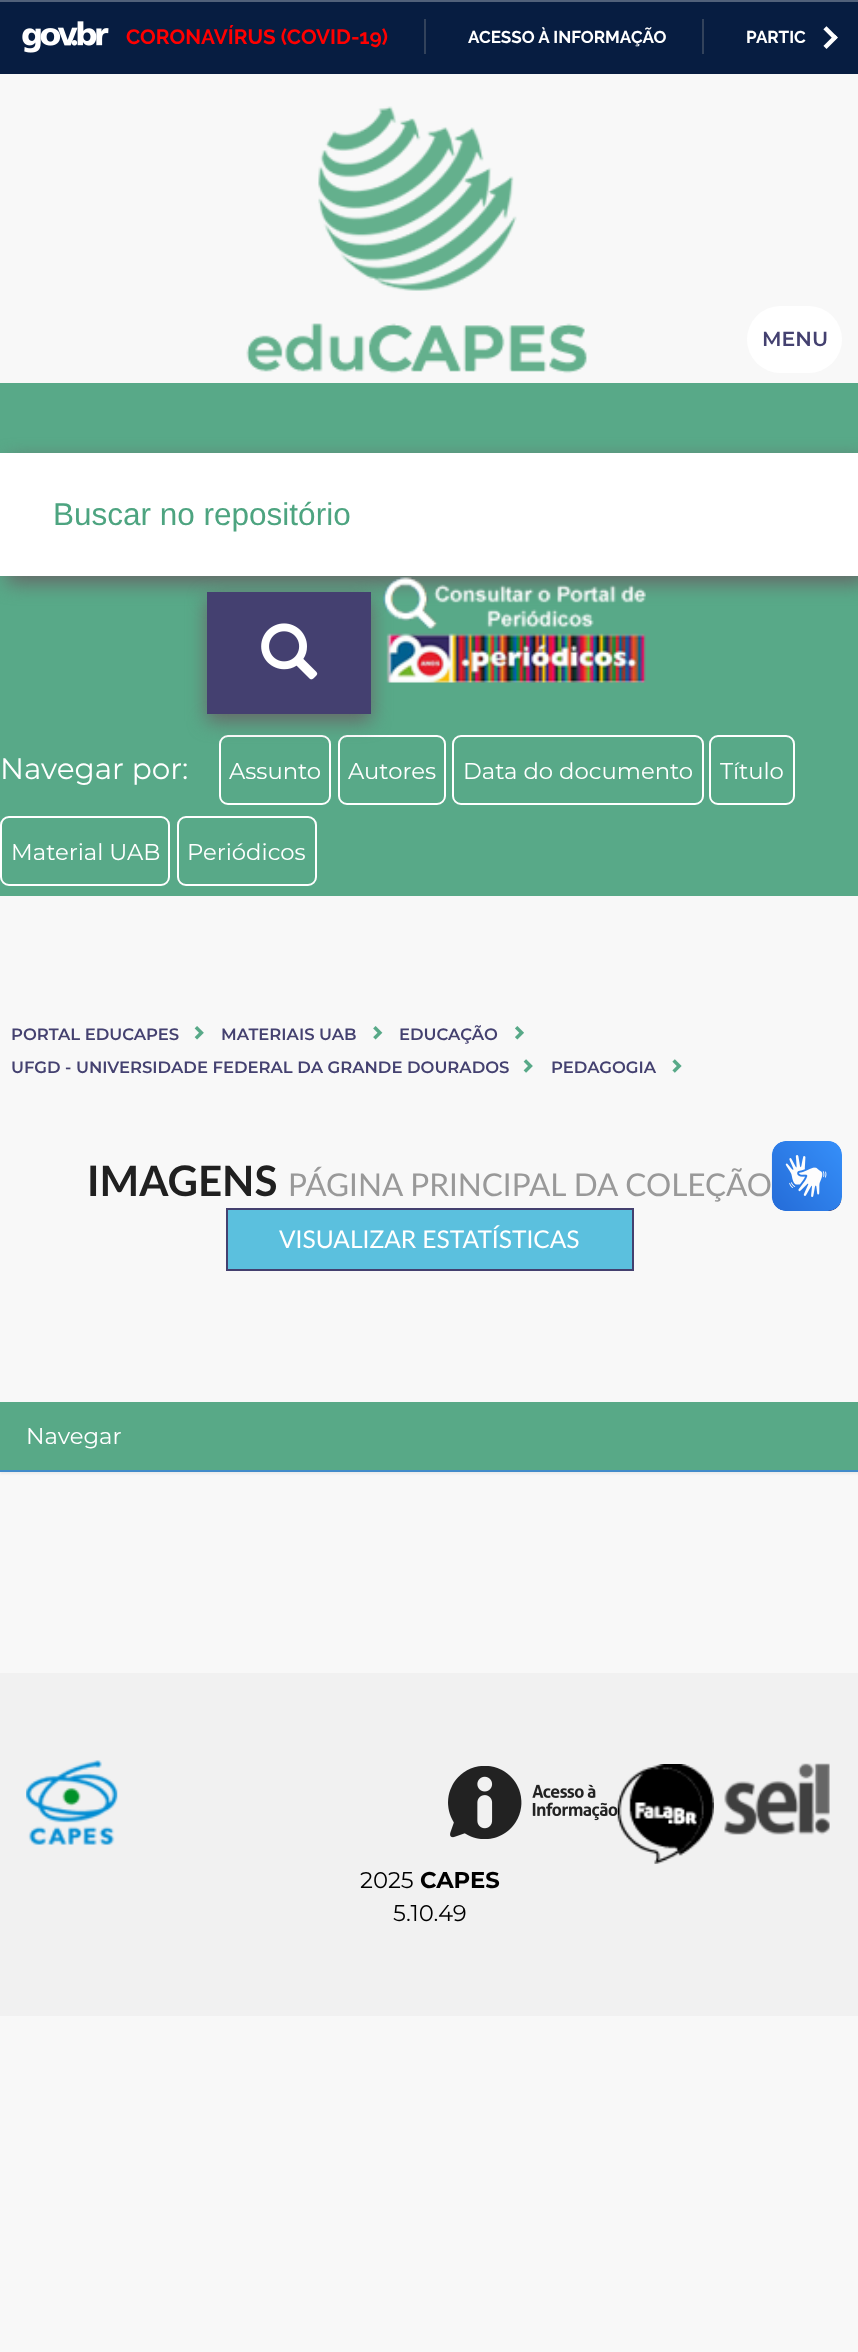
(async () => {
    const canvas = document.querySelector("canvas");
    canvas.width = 858;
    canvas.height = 2352;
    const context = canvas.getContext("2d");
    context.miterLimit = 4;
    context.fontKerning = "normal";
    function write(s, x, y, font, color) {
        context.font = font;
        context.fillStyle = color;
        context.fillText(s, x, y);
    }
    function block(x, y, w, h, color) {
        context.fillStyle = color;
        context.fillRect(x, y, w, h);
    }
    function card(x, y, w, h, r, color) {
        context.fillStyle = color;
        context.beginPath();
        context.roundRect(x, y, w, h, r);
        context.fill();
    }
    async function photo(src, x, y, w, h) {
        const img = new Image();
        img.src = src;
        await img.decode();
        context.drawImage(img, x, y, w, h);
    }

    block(0, 0, 858, 2352, "rgb(248, 248, 248)");
    block(0, 2, 858, 72, "rgb(7, 29, 65)");
    block(0, 0, 858, 2, "rgb(81, 97, 122)");
    await photo("media/1.png", 22, 21, 87, 32);
    write("CORONAVÍRUS (COVID-19)", 126, 44, "bold 20.75px Raleway", "rgb(255, 0, 0)");
    block(424, 19, 2, 35, "rgb(50, 66, 91)");
    write("ACESSO À INFORMAÇÃO", 468, 43, "bold 17.1px Raleway", "rgb(255, 255, 255)");
    block(702, 19, 2, 35, "rgb(50, 66, 91)");
    write("PARTIC", 746, 43, "bold 17.1px Raleway", "rgb(255, 255, 255)");
    await photo("media/2.png", 823, 26, 15, 23);
    await photo("media/3.png", 246, 106, 341, 268);
    card(747, 306, 95, 67, 33.5, "rgb(255, 255, 255)");
    write("MENU", 762, 346, "600 20.5px Montserrat", "rgb(68, 65, 112)");
    block(0, 383, 858, 513, "rgb(88, 169, 136)");
    context.fillStyle = "rgb(102, 102, 102)";
    context.filter = "blur(9.5px)";
    context.beginPath();
    context.rect(7, 460, 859, 123);
    context.fill();
    context.filter = "none";
    block(0, 453, 858, 123, "rgb(255, 255, 255)");
    write("Buscar no repositório", 53, 525, "31.5px Liberation Sans", "rgb(77, 164, 128)");
    context.beginPath();
    context.roundRect(220, 736, 110, 68, 8);
    context.strokeStyle = "rgb(255, 255, 255)";
    context.lineWidth = 2;
    context.stroke();
    context.beginPath();
    context.roundRect(339, 736, 106, 68, 8);
    context.stroke();
    context.fillStyle = "rgb(102, 102, 102)";
    context.filter = "blur(9.5px)";
    context.beginPath();
    context.rect(207, 599, 164, 122);
    context.fill();
    context.filter = "none";
    block(207, 592, 164, 122, "rgb(68, 64, 112)");
    await photo("media/4.png", 261, 623, 57, 57);
    await photo("media/5.png", 383, 577, 263, 106);
    write("Navegar por:", 0, 779, "29.5px Montserrat", "rgb(255, 255, 255)");
    write("Assunto", 229, 779, "22.75px Montserrat", "rgb(255, 255, 255)");
    write("Autores", 348, 779, "22.75px Montserrat", "rgb(255, 255, 255)");
    context.beginPath();
    context.roundRect(453, 736, 250, 68, 8);
    context.stroke();
    write("Data do documento", 463, 779, "22.75px Montserrat", "rgb(255, 255, 255)");
    context.beginPath();
    context.roundRect(710, 736, 84, 68, 8);
    context.stroke();
    write("Título", 720, 779, "22.75px Montserrat", "rgb(255, 255, 255)");
    context.beginPath();
    context.roundRect(1, 817, 168, 68, 8);
    context.stroke();
    write("Material UAB", 11, 860, "22.75px Montserrat", "rgb(255, 255, 255)");
    context.beginPath();
    context.roundRect(178, 817, 138, 68, 8);
    context.stroke();
    write("Periódicos", 187, 860, "22.75px Montserrat", "rgb(255, 255, 255)");
    write("PORTAL EDUCAPES", 11, 1040, "600 16.45px Montserrat", "rgb(68, 65, 112)");
    await photo("media/6.png", 194, 1026, 10, 14);
    write("MATERIAIS UAB", 221, 1040, "600 16.45px Montserrat", "rgb(68, 65, 112)");
    await photo("media/7.png", 373, 1026, 10, 14);
    write("EDUCAÇÃO", 399, 1040, "600 16.45px Montserrat", "rgb(68, 65, 112)");
    await photo("media/8.png", 515, 1026, 9, 14);
    write("UFGD - UNIVERSIDADE FEDERAL DA GRANDE DOURADOS", 11, 1073, "600 16.45px Montserrat", "rgb(68, 65, 112)");
    await photo("media/9.png", 523, 1059, 10, 14);
    write("PEDAGOGIA", 551, 1073, "600 16.45px Montserrat", "rgb(68, 65, 112)");
    await photo("media/10.png", 672, 1059, 10, 14);
    write("IMAGENS", 87, 1196, "bold 42px Lato", "rgb(32, 32, 32)");
    write("PÁGINA PRINCIPAL DA COLEÇÃO", 288, 1196, "31.5px Lato", "rgb(153, 153, 153)");
    context.fillStyle = "rgb(91, 192, 222)";
    context.beginPath();
    context.rect(227, 1209, 406, 61);
    context.fill();
    context.strokeStyle = "rgb(68, 64, 111)";
    context.stroke();
    write("VISUALIZAR ESTATÍSTICAS", 279, 1248, "24.5px Lato", "rgb(255, 255, 255)");
    context.fillStyle = "rgba(0, 0, 0, 0.05)";
    context.filter = "blur(1px)";
    context.beginPath();
    context.rect(0, 1404, 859, 70);
    context.fill();
    context.filter = "none";
    block(0, 1402, 858, 68, "rgb(88, 169, 135)");
    block(0, 1470, 858, 2, "rgb(66, 139, 202)");
    write("Navegar", 26, 1444, "22.75px Montserrat", "rgb(255, 255, 255)");
    block(0, 1673, 858, 343, "rgb(241, 241, 241)");
    await photo("media/11.png", 26, 1760, 92, 85);
    await photo("media/13.png", 617, 1764, 97, 100);
    await photo("media/12.png", 448, 1766, 170, 73);
    await photo("media/14.png", 724, 1763, 106, 72);
    write("2025", 360, 1888, "22.75px Montserrat", "rgb(0, 0, 0)");
    write("CAPES", 420, 1888, "bold 22.75px Montserrat", "rgb(0, 0, 0)");
    write("5.10.49", 393, 1921, "22.75px Montserrat", "rgb(0, 0, 0)");
    await photo("media/15.png", 771, 1141, 71, 70);
    await photo("media/16.png", 772, 1141, 70, 70);
})();
